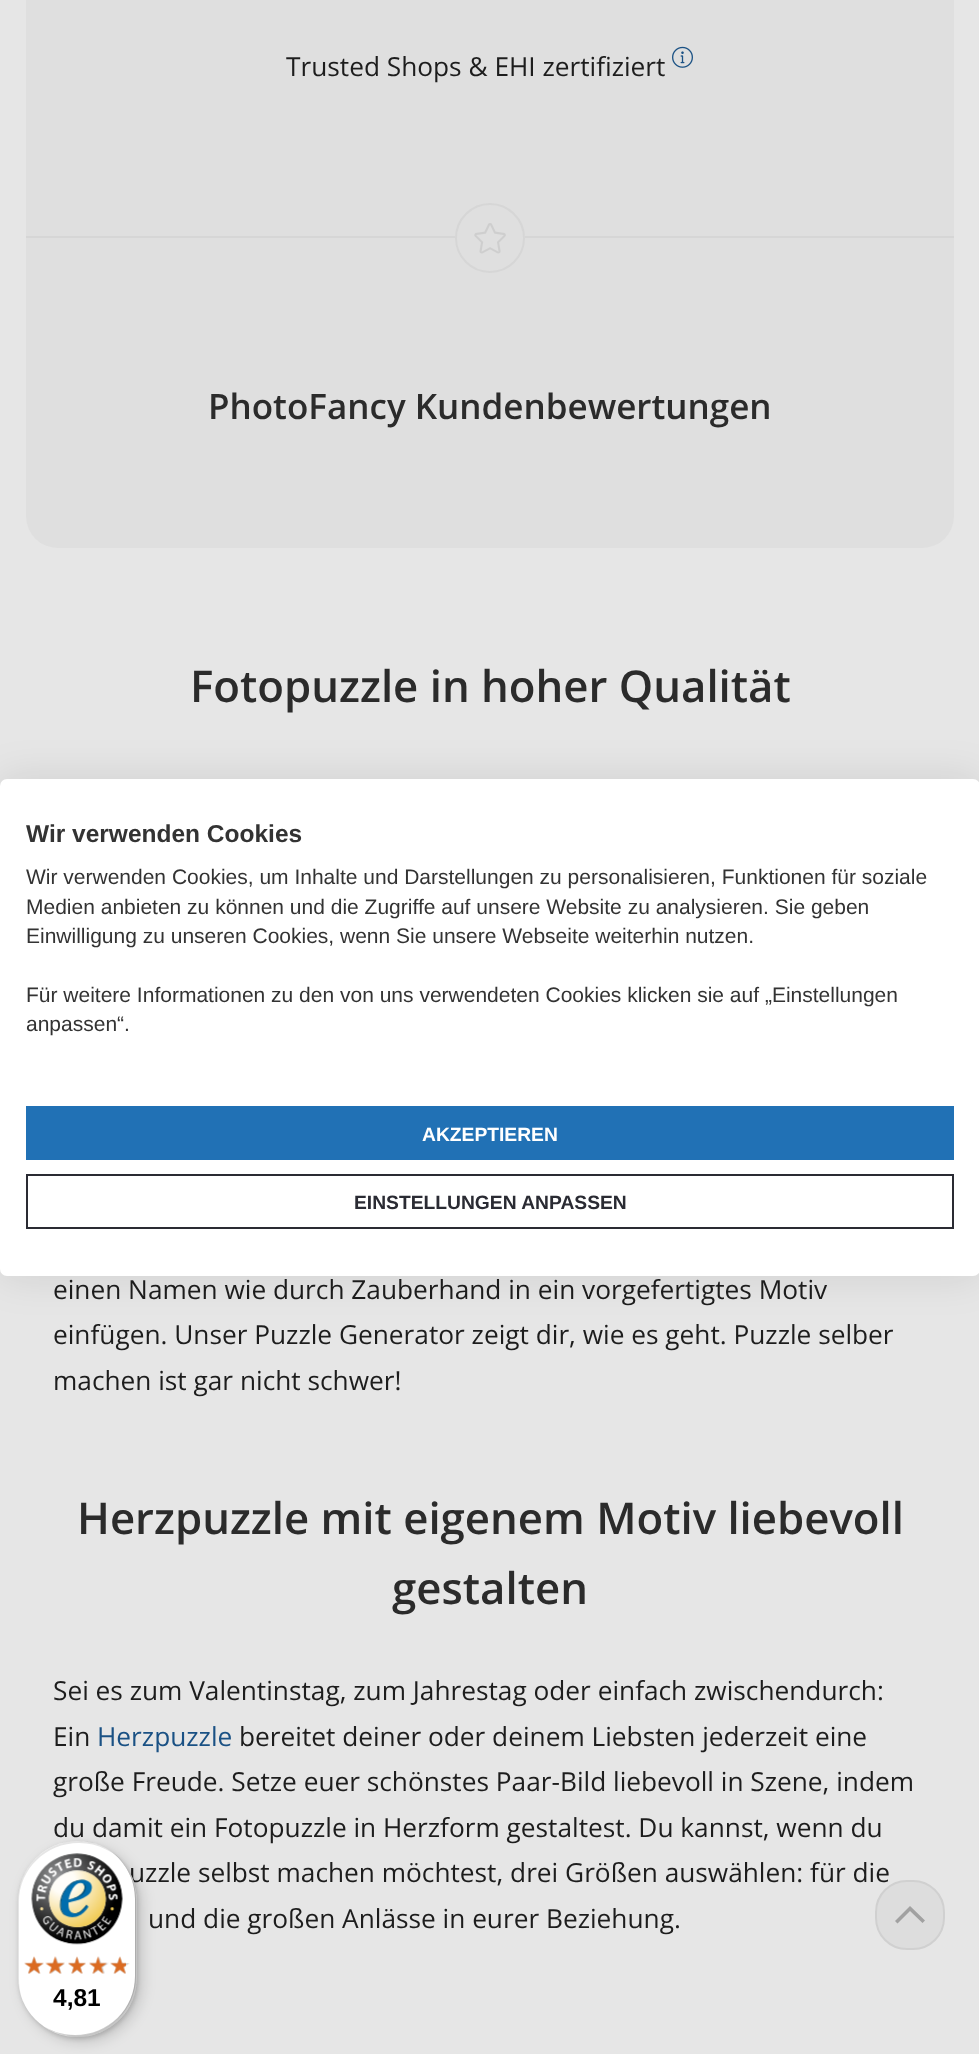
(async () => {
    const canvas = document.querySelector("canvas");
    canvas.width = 979;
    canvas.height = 2054;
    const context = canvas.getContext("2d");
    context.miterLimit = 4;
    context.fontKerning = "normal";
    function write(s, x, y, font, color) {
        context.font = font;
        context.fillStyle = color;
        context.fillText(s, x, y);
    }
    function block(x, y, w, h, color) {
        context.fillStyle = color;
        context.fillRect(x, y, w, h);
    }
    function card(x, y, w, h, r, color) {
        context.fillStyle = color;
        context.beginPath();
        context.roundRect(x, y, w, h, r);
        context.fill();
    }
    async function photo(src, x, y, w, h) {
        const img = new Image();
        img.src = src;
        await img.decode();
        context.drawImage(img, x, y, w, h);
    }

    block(0, 0, 979, 2054, "rgb(230, 230, 230)");
    card(26, -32, 928, 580, 32, "rgb(223, 223, 223)");
    write("Trusted Shops & EHI zertifiziert", 286, 76, "26.25px Open Sans", "rgb(29, 29, 29)");
    await photo("media/1.png", 672, 46, 21, 22);
    block(26, 236, 429, 2, "rgb(214, 214, 214)");
    context.beginPath();
    context.arc(490, 238, 34, 0, Math.PI * 2);
    context.strokeStyle = "rgb(214, 214, 214)";
    context.lineWidth = 2;
    context.stroke();
    await photo("media/2.png", 474, 223, 32, 31);
    block(525, 236, 429, 2, "rgb(214, 214, 214)");
    write("PhotoFancy Kundenbewertungen", 208, 419, "600 35px Open Sans", "rgb(43, 43, 43)");
    write("Fotopuzzle in hoher Qualität", 190, 702, "600 43.75px Open Sans", "rgb(43, 43, 43)");
    write("einen Namen wie durch Zauberhand in ein vorgefertigtes Motiv", 53, 1299, "26.25px Open Sans", "rgb(29, 29, 29)");
    write("einfügen. Unser Puzzle Generator zeigt dir, wie es geht. Puzzle selber", 53, 1344, "26.25px Open Sans", "rgb(29, 29, 29)");
    write("machen ist gar nicht schwer!", 53, 1390, "26.25px Open Sans", "rgb(29, 29, 29)");
    write("Herzpuzzle mit eigenem Motiv liebevoll", 77, 1534, "600 43.75px Open Sans", "rgb(43, 43, 43)");
    write("gestalten", 392, 1604, "600 43.75px Open Sans", "rgb(43, 43, 43)");
    write("Sei es zum Valentinstag, zum Jahrestag oder einfach zwischendurch:", 53, 1700, "26.25px Open Sans", "rgb(29, 29, 29)");
    write("Ein", 53, 1746, "26.25px Open Sans", "rgb(29, 29, 29)");
    write("Herzpuzzle", 97, 1746, "26.25px Open Sans", "rgb(26, 81, 132)");
    write("bereitet deiner oder deinem Liebsten jederzeit eine", 239, 1746, "26.25px Open Sans", "rgb(29, 29, 29)");
    write("große Freude. Setze euer schönstes Paar-Bild liebevoll in Szene, indem", 53, 1791, "26.25px Open Sans", "rgb(29, 29, 29)");
    write("du damit ein Fotopuzzle in Herzform gestaltest. Du kannst, wenn du", 53, 1837, "26.25px Open Sans", "rgb(29, 29, 29)");
    write("uzzle selbst machen möchtest, drei Größen auswählen: für die", 129, 1882, "26.25px Open Sans", "rgb(29, 29, 29)");
    write("und die großen Anlässe in eurer Beziehung.", 148, 1928, "26.25px Open Sans", "rgb(29, 29, 29)");
    context.fillStyle = "rgb(221, 221, 221)";
    context.beginPath();
    context.roundRect(876, 1881, 68, 68, 31);
    context.fill();
    context.strokeStyle = "rgb(208, 208, 208)";
    context.stroke();
    context.fillStyle = "rgb(161, 161, 161)";
    context.beginPath();
    context.moveTo(910, 1911);
    context.lineTo(922.5, 1923);
    context.lineTo(925, 1920.5);
    context.lineTo(910, 1906);
    context.lineTo(895, 1921);
    context.lineTo(897.5, 1923.5);
    context.closePath();
    context.fill();
    context.fillStyle = "rgba(0, 0, 0, 0.1)";
    context.filter = "blur(21px)";
    context.beginPath();
    context.roundRect(0, 779, 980, 497, 7);
    context.fill();
    context.filter = "none";
    card(0, 779, 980, 497, 7, "rgb(255, 255, 255)");
    write("Wir verwenden Cookies", 26, 842, "bold 24.5px Liberation Sans", "rgb(51, 51, 51)");
    write("Wir verwenden Cookies, um Inhalte und Darstellungen zu personalisieren, Funktionen für soziale", 26, 884, "21px Liberation Sans", "rgb(51, 51, 51)");
    write("Medien anbieten zu können und die Zugriffe auf unsere Website zu analysieren. Sie geben", 26, 914, "21px Liberation Sans", "rgb(51, 51, 51)");
    write("Einwilligung zu unseren Cookies, wenn Sie unsere Webseite weiterhin nutzen.", 26, 943, "21px Liberation Sans", "rgb(51, 51, 51)");
    write("Für weitere Informationen zu den von uns verwendeten Cookies klicken sie auf „Einstellungen", 26, 1002, "21px Liberation Sans", "rgb(51, 51, 51)");
    write("anpassen“.", 26, 1031, "21px Liberation Sans", "rgb(51, 51, 51)");
    block(26, 1106, 928, 54, "rgb(33, 113, 181)");
    write("AKZEPTIEREN", 422, 1141, "bold 19.25px Liberation Sans", "rgb(255, 255, 255)");
    context.strokeStyle = "rgb(42, 43, 51)";
    context.strokeRect(27, 1175, 926, 53);
    write("EINSTELLUNGEN ANPASSEN", 354, 1209, "bold 19.25px Liberation Sans", "rgb(42, 43, 51)");
    context.fillStyle = "rgba(0, 0, 0, 0.15)";
    context.filter = "blur(7px)";
    context.beginPath();
    context.roundRect(23, 1846, 119, 196, 59.5);
    context.fill();
    context.filter = "none";
    context.filter = "blur(2px)";
    context.beginPath();
    context.roundRect(19, 1843, 119, 196, 59.5);
    context.fill();
    context.filter = "none";
    card(18, 1841, 119, 196, 59.5, "rgb(255, 255, 255)");
    context.fillStyle = "rgba(0, 0, 0, 0.1)";
    context.beginPath();
    context.moveTo(79, 1843);
    context.bezierCurveTo(98, 1843, 115, 1852, 126, 1865);
    context.bezierCurveTo(115, 1851, 97, 1841, 78, 1841);
    context.bezierCurveTo(45, 1841, 18, 1868, 18, 1900);
    context.lineTo(18, 1978);
    context.bezierCurveTo(18, 1990, 22, 2001, 28, 2011);
    context.bezierCurveTo(22, 2002, 19, 1991, 19, 1979);
    context.lineTo(19, 1902);
    context.bezierCurveTo(19, 1869, 46, 1843, 79, 1843);
    context.closePath();
    context.fill();
    context.fillStyle = "rgba(0, 0, 0, 0.2)";
    context.beginPath();
    context.moveTo(41, 2024);
    context.bezierCurveTo(51, 2032, 64, 2037, 78, 2037);
    context.bezierCurveTo(110, 2037, 137, 2010, 137, 1978);
    context.lineTo(137, 1900);
    context.bezierCurveTo(137, 1881, 128, 1865, 114, 1854);
    context.bezierCurveTo(127, 1865, 135, 1881, 135, 1899);
    context.lineTo(135, 1976);
    context.bezierCurveTo(135, 2009, 108, 2035, 75, 2035);
    context.bezierCurveTo(62, 2035, 50, 2031, 41, 2024);
    context.closePath();
    context.fill();
    context.fillStyle = "rgba(50, 50, 50, 0.2)";
    context.beginPath();
    context.moveTo(44, 2027);
    context.bezierCurveTo(54, 2033, 65, 2037, 78, 2037);
    context.bezierCurveTo(110, 2037, 137, 2010, 137, 1978);
    context.lineTo(137, 1900);
    context.bezierCurveTo(137, 1878, 125, 1859, 107, 1849);
    context.bezierCurveTo(124, 1859, 135, 1878, 135, 1899);
    context.lineTo(135, 1976);
    context.bezierCurveTo(135, 2009, 109, 2036, 76, 2036);
    context.bezierCurveTo(64, 2036, 53, 2033, 44, 2027);
    context.closePath();
    context.fill();
    context.fillStyle = "rgba(255, 255, 255, 0.3)";
    context.beginPath();
    context.moveTo(40, 2024);
    context.bezierCurveTo(50, 2032, 63, 2037, 78, 2037);
    context.bezierCurveTo(110, 2037, 137, 2010, 137, 1978);
    context.lineTo(137, 1900);
    context.bezierCurveTo(137, 1880, 126, 1862, 110, 1851);
    context.bezierCurveTo(126, 1862, 136, 1880, 136, 1900);
    context.lineTo(136, 1977);
    context.bezierCurveTo(136, 2009, 109, 2036, 76, 2036);
    context.bezierCurveTo(62, 2036, 50, 2031, 40, 2024);
    context.closePath();
    context.fill();
    await photo("media/3.png", 31, 1853, 92, 92);
    await photo("media/4.png", 24, 1957, 20, 17);
    await photo("media/5.png", 47, 1956, 18, 18);
    await photo("media/6.png", 68, 1957, 18, 17);
    await photo("media/7.png", 89, 1956, 20, 18);
    await photo("media/8.png", 110, 1957, 20, 17);
    await photo("media/9.png", 24, 1956, 20, 18);
    await photo("media/10.png", 45, 1956, 20, 18);
    await photo("media/11.png", 68, 1956, 18, 18);
    await photo("media/12.png", 89, 1956, 18, 18);
    await photo("media/13.png", 110, 1956, 16, 18);
    write("4,81", 53, 2006, "bold 24.5px Liberation Sans", "rgb(0, 0, 0)");
})();
